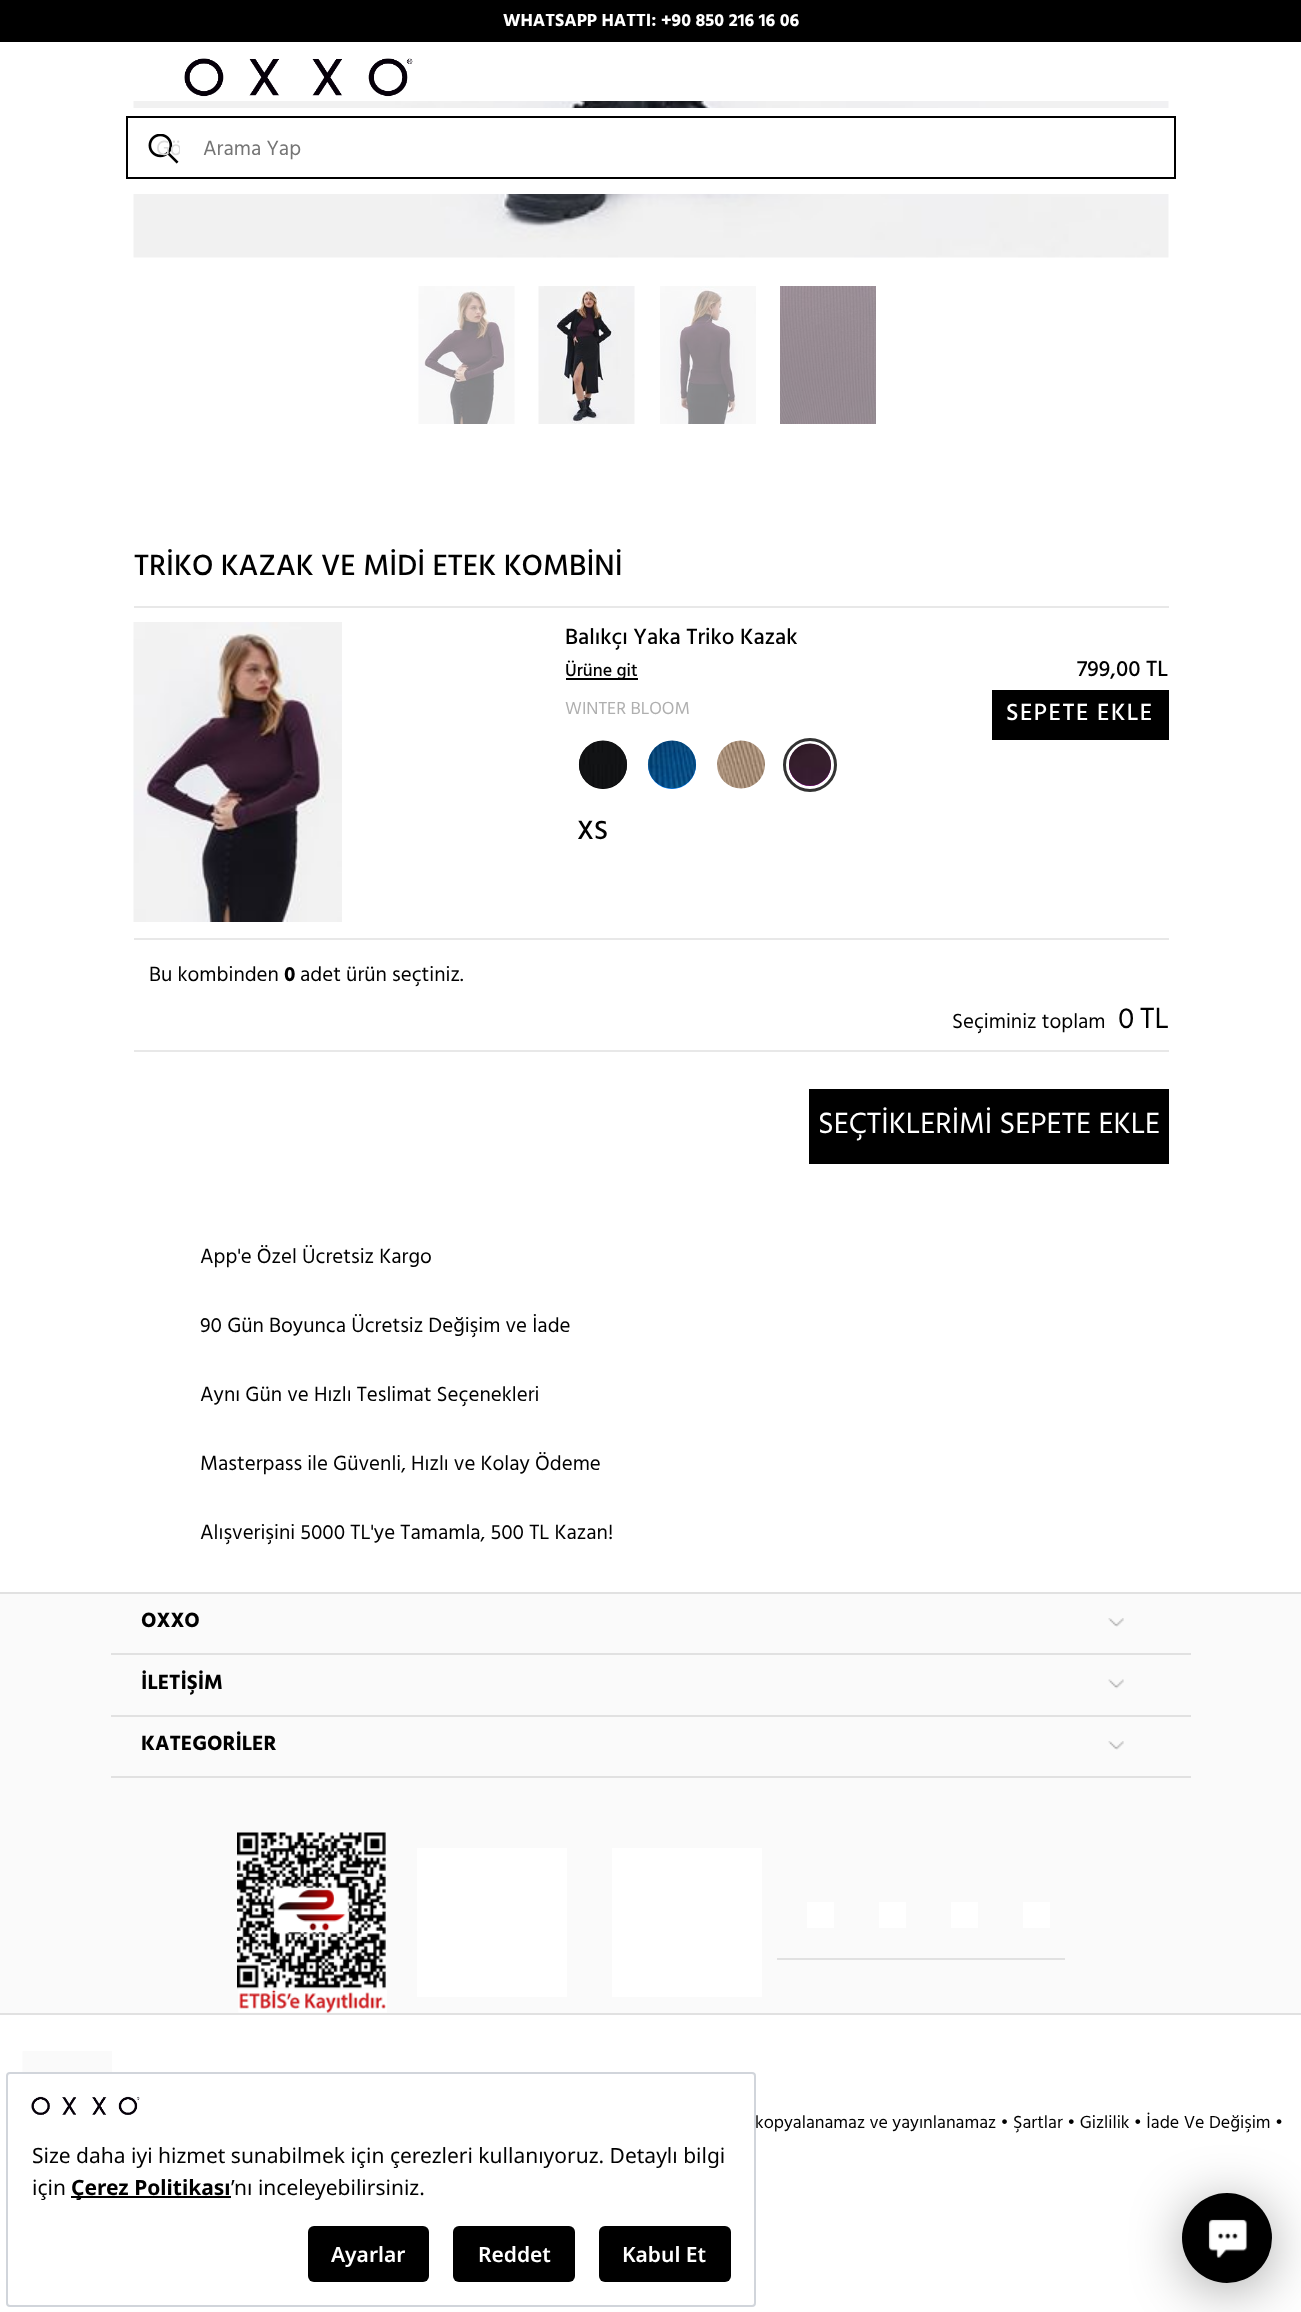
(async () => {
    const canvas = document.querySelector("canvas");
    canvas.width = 1301;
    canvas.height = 2312;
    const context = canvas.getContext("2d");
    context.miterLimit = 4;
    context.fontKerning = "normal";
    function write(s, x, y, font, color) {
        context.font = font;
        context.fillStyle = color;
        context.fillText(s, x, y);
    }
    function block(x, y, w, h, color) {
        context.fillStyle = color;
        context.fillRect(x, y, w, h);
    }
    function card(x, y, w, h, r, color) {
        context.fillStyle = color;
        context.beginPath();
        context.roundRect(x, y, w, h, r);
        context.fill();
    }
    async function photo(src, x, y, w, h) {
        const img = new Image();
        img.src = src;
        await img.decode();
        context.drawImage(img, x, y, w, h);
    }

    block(0, 0, 1301, 2312, "rgb(255, 255, 255)");
    block(0, 0, 1301, 42, "rgb(0, 0, 0)");
    write("WHATSAPP HATTI: +90 850 216 16 06", 503, 26, "bold 18px Hind", "rgb(255, 255, 255)");
    await photo("media/1.png", 184, 58, 229, 39);
    await photo("media/3.png", 133, 101, 1036, 157);
    block(133, 108, 1036, 86, "rgb(255, 255, 255)");
    context.strokeStyle = "rgb(0, 0, 0)";
    context.lineWidth = 2;
    context.strokeRect(127, 117, 1048, 61);
    await photo("media/2.png", 148, 134, 31, 30);
    context.save();
    context.beginPath();
    context.rect(147, 134, 33, 33);
    context.clip();
    write("Gö", 156, 155, "21px Hind", "rgb(219, 219, 219)");
    context.restore();
    write("Arama Yap", 203, 155, "21px Hind", "rgb(117, 117, 117)");
    await photo("media/4.png", 418, 286, 97, 138);
    await photo("media/5.png", 538, 286, 97, 138);
    await photo("media/6.png", 660, 286, 96, 138);
    await photo("media/7.png", 780, 286, 96, 138);
    block(134, 606, 1035, 2, "rgb(232, 232, 232)");
    write("TRİKO KAZAK VE MİDİ ETEK KOMBİNİ", 134, 575, "500 30px Hind", "rgb(0, 0, 0)");
    block(134, 938, 1035, 2, "rgb(232, 232, 232)");
    await photo("media/8.png", 133, 622, 209, 300);
    write("Balıkçı Yaka Triko Kazak", 565, 644, "500 22.5px Hind", "rgb(0, 0, 0)");
    block(566, 678, 72, 2, "rgb(0, 0, 0)");
    write("Ürüne git", 565, 676, "500 18px Hind", "rgb(0, 0, 0)");
    write("799,00 TL", 1077, 676, "500 22.5px Hind", "rgb(0, 0, 0)");
    block(992, 690, 177, 50, "rgb(0, 0, 0)");
    context.letterSpacing = "1.5px";
    write("SEPETE EKLE", 1006, 720, "500 24px Hind", "rgb(255, 255, 255)");
    context.letterSpacing = "0px";
    write("WINTER BLOOM", 565, 714, "18px Hind", "rgb(175, 175, 175)");
    context.fillStyle = "rgb(0, 0, 0)";
    context.beginPath();
    context.arc(603, 765, 24, 0, Math.PI * 2);
    context.fill();
    await photo("media/9.png", 578, 740, 50, 49);
    context.fillStyle = "rgb(0, 128, 255)";
    context.beginPath();
    context.arc(672, 765, 24, 0, Math.PI * 2);
    context.fill();
    await photo("media/10.png", 647, 740, 50, 49);
    await photo("media/11.png", 717, 740, 48, 49);
    context.beginPath();
    context.arc(810, 765, 25.5, 0, Math.PI * 2);
    context.strokeStyle = "rgb(51, 51, 51)";
    context.lineWidth = 3;
    context.stroke();
    context.fillStyle = "rgb(121, 0, 122)";
    context.beginPath();
    context.arc(810, 765, 21, 0, Math.PI * 2);
    context.fill();
    await photo("media/12.png", 789, 743, 42, 43);
    write("XS", 577, 839, "500 27px Hind", "rgb(0, 0, 0)");
    block(134, 1050, 1035, 2, "rgb(232, 232, 232)");
    write("Bu kombinden", 149, 981, "21px Hind", "rgb(0, 0, 0)");
    write("0", 284, 981, "bold 21px Hind", "rgb(0, 0, 0)");
    write("adet ürün seçtiniz.", 300, 981, "21px Hind", "rgb(0, 0, 0)");
    write("Seçiminiz toplam", 952, 1028, "21px Hind", "rgb(0, 0, 0)");
    write("0", 1118, 1028, "30px Hind", "rgb(0, 0, 0)");
    write("TL", 1140, 1028, "30px Hind", "rgb(0, 0, 0)");
    block(809, 1089, 360, 75, "rgb(0, 0, 0)");
    write("SEÇTİKLERİMİ SEPETE EKLE", 818, 1133, "30px Hind", "rgb(255, 255, 255)");
    write("App'e Özel Ücretsiz Kargo", 200, 1263, "21px Hind", "rgb(0, 0, 0)");
    write("90 Gün Boyunca Ücretsiz Değişim ve İade", 200, 1332, "21px Hind", "rgb(0, 0, 0)");
    write("Aynı Gün ve Hızlı Teslimat Seçenekleri", 200, 1401, "21px Hind", "rgb(0, 0, 0)");
    write("Masterpass ile Güvenli, Hızlı ve Kolay Ödeme", 200, 1470, "21px Hind", "rgb(0, 0, 0)");
    write("Alışverişini 5000 TL'ye Tamamla, 500 TL Kazan!", 200, 1539, "21px Hind", "rgb(0, 0, 0)");
    block(0, 1594, 1301, 419, "rgb(250, 250, 250)");
    block(0, 1592, 1301, 2, "rgb(225, 225, 225)");
    block(0, 2013, 1301, 2, "rgb(225, 225, 225)");
    await photo("media/13.png", 1108, 1618, 16, 9);
    block(111, 1653, 1080, 2, "rgb(225, 225, 225)");
    write("OXXO", 141, 1627, "bold 21px Hind", "rgb(0, 0, 0)");
    await photo("media/14.png", 1108, 1679, 16, 10);
    block(111, 1715, 1080, 2, "rgb(225, 225, 225)");
    write("İLETİŞİM", 141, 1689, "bold 21px Hind", "rgb(0, 0, 0)");
    await photo("media/13.png", 1108, 1741, 16, 9);
    block(111, 1776, 1080, 2, "rgb(225, 225, 225)");
    write("KATEGORİLER", 141, 1750, "bold 21px Hind", "rgb(0, 0, 0)");
    await photo("media/15.png", 237, 1832, 150, 181);
    block(417, 1848, 150, 149, "rgb(255, 255, 255)");
    block(612, 1848, 150, 149, "rgb(255, 255, 255)");
    block(777, 1958, 288, 2, "rgb(225, 225, 225)");
    block(807, 1902, 27, 26, "rgb(255, 255, 255)");
    block(879, 1902, 27, 26, "rgb(255, 255, 255)");
    block(951, 1902, 27, 26, "rgb(255, 255, 255)");
    block(1023, 1902, 27, 26, "rgb(255, 255, 255)");
    await photo("media/16.png", 22, 2051, 90, 21);
    write("kopyalanamaz ve yayınlanamaz • Şartlar • Gizlilik • İade Ve Değişim •", 755, 2128, "18px Hind", "rgb(0, 0, 0)");
    context.beginPath();
    context.roundRect(7, 2073, 748, 233, 3);
    context.strokeStyle = "rgb(209, 213, 219)";
    context.lineWidth = 2;
    context.stroke();
    await photo("media/17.png", 31, 2096, 109, 19);
    write("Size daha iyi hizmet sunabilmek için çerezleri kullanıyoruz. Detaylı bilgi", 32, 2163, "21px Noto Sans", "rgb(0, 0, 0)");
    write("için", 32, 2195, "21px Noto Sans", "rgb(0, 0, 0)");
    block(71, 2196, 160, 2, "rgb(0, 0, 0)");
    write("Çerez Politikası", 71, 2195, "bold 21px Noto Sans", "rgb(0, 0, 0)");
    write("’nı inceleyebilirsiniz.", 231, 2195, "21px Noto Sans", "rgb(0, 0, 0)");
    card(308, 2226, 121, 56, 6, "rgb(0, 0, 0)");
    write("Ayarlar", 331, 2262, "600 21px Noto Sans", "rgb(255, 255, 255)");
    card(453, 2226, 122, 56, 6, "rgb(0, 0, 0)");
    write("Reddet", 478, 2262, "600 21px Noto Sans", "rgb(255, 255, 255)");
    card(599, 2226, 132, 56, 6, "rgb(0, 0, 0)");
    write("Kabul Et", 622, 2262, "600 21px Noto Sans", "rgb(255, 255, 255)");
    context.fillStyle = "rgba(0, 0, 0, 0.5)";
    context.filter = "blur(30px)";
    context.beginPath();
    context.roundRect(1190, 2208, 75, 75, 37.5);
    context.fill();
    context.filter = "none";
    context.fillStyle = "rgb(0, 0, 0)";
    context.beginPath();
    context.arc(1227, 2238, 45, 0, Math.PI * 2);
    context.fill();
    await photo("media/18.png", 1208, 2219, 40, 39);
})();
